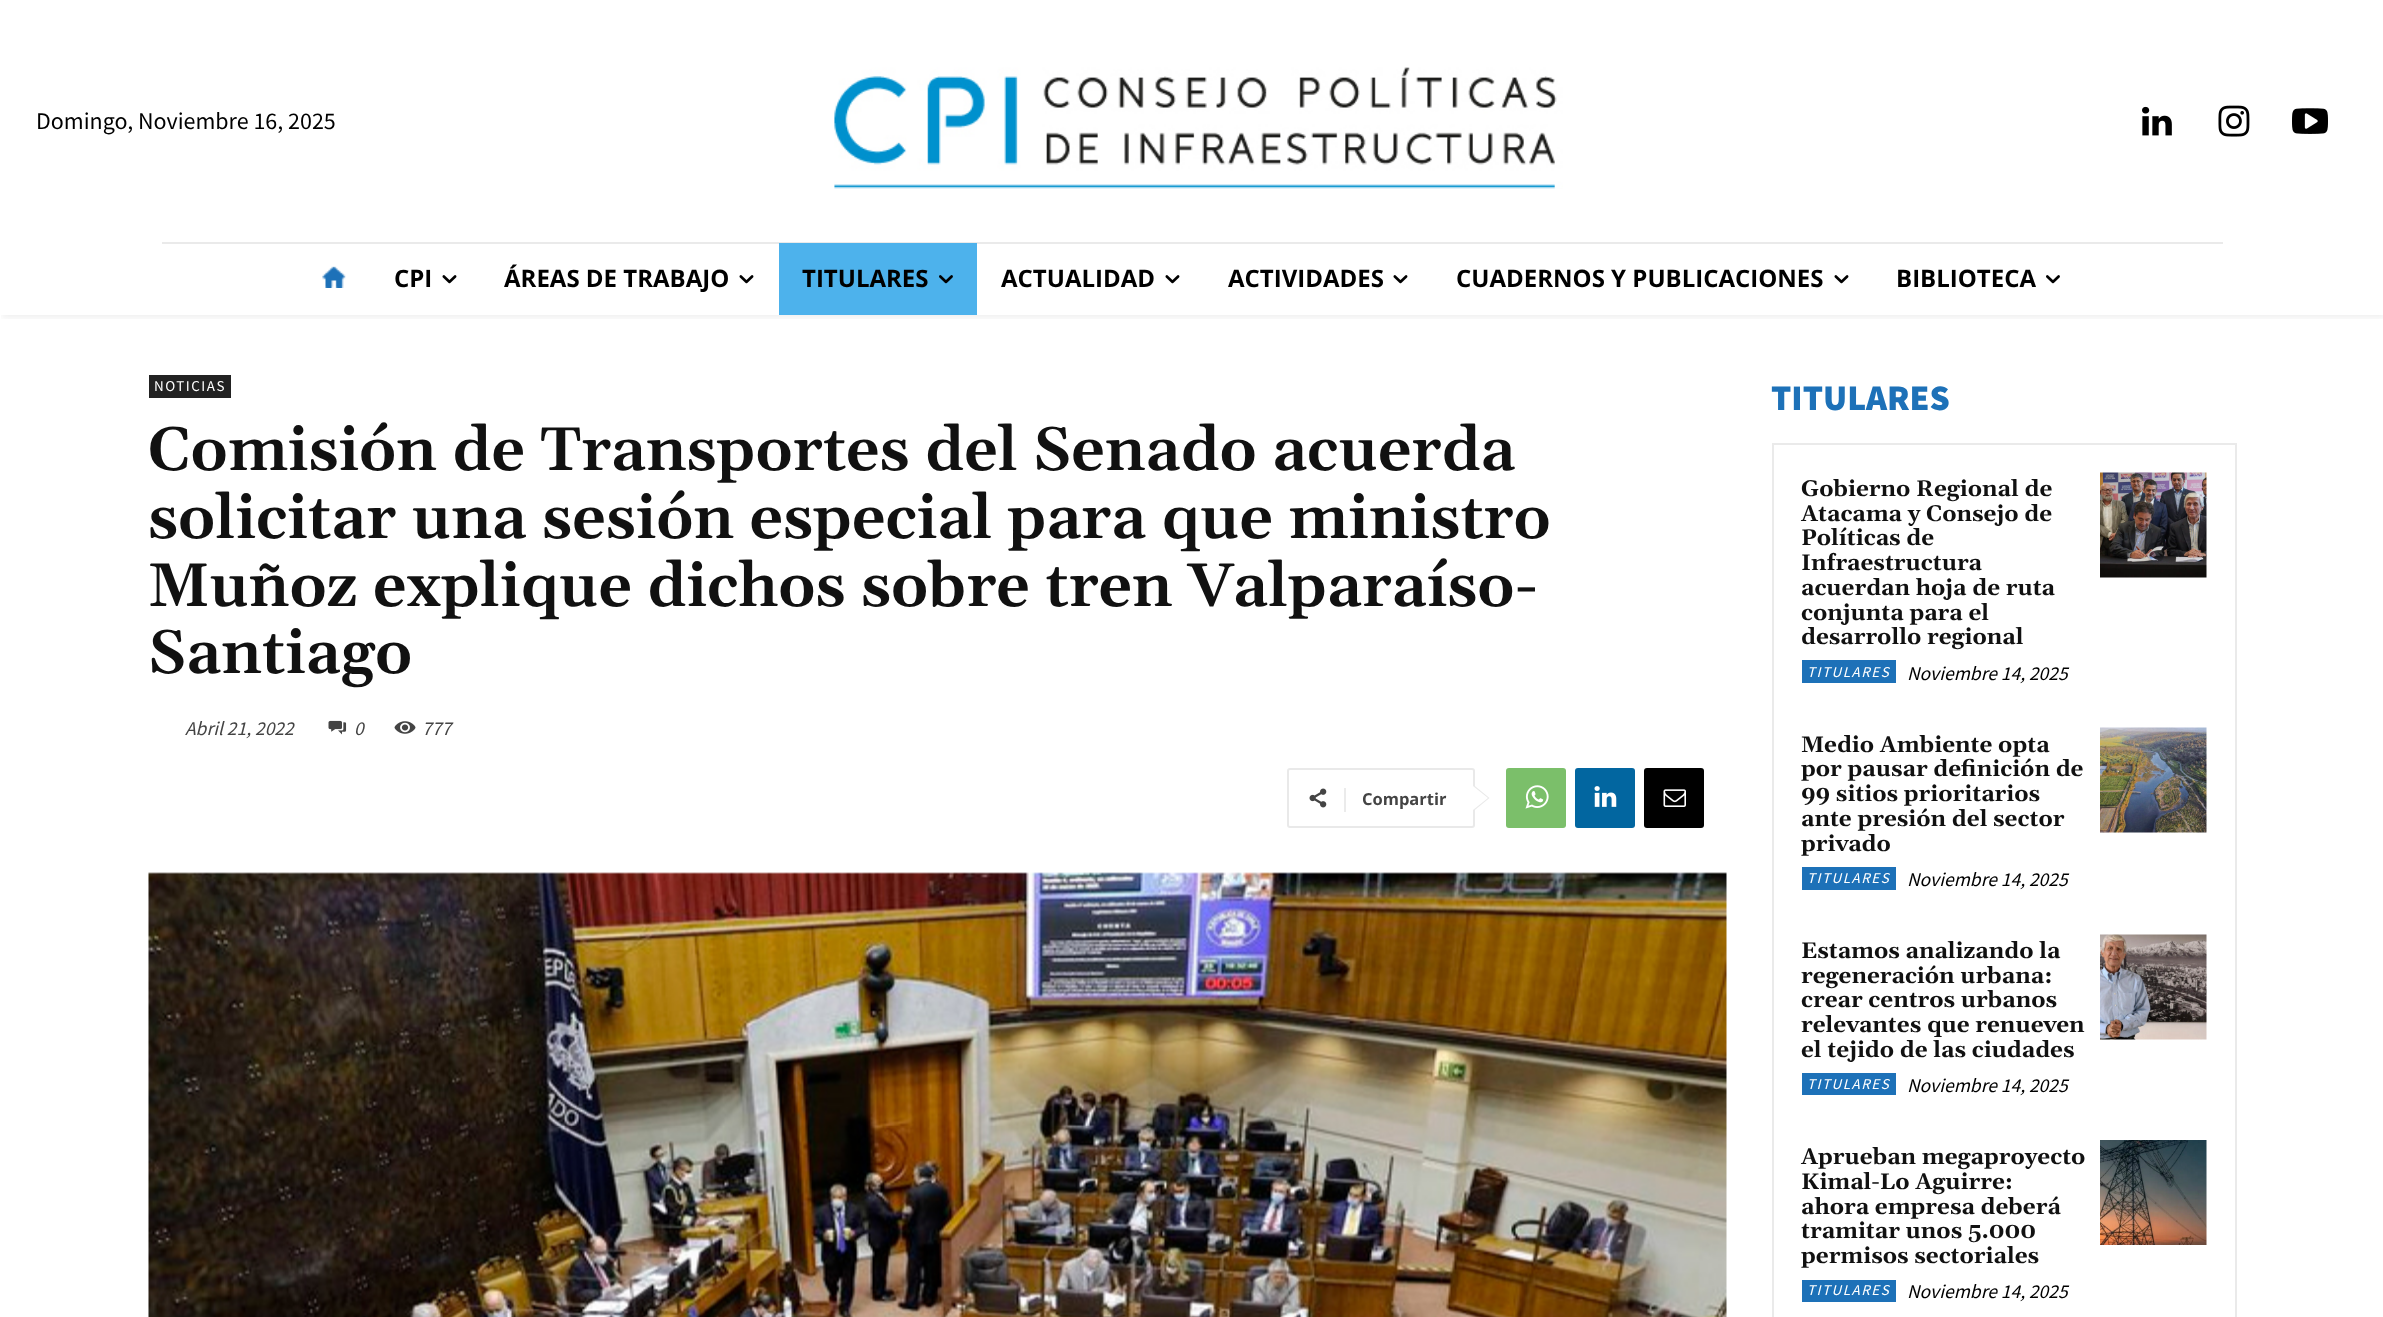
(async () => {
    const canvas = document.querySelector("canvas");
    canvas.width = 2383;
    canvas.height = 1317;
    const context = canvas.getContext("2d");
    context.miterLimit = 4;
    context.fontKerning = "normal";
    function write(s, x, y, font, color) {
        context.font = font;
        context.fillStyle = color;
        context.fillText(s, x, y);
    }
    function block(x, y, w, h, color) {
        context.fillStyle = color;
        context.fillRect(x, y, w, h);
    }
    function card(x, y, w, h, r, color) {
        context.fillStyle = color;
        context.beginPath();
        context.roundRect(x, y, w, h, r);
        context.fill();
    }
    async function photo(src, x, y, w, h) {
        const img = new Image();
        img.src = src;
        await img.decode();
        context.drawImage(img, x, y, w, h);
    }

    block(0, 0, 2383, 1317, "rgb(255, 255, 255)");
    write("Domingo, Noviembre 16, 2025", 36, 129, "24px Source Sans Pro", "rgb(0, 0, 0)");
    await photo("media/1.png", 834, 67, 729, 122);
    await photo("media/2.png", 2142, 106, 30, 30);
    await photo("media/3.png", 2218, 105, 32, 32);
    await photo("media/4.png", 2292, 108, 36, 26);
    block(162, 242, 2061, 2, "rgb(234, 234, 234)");
    context.save();
    context.beginPath();
    context.rect(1, 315, 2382, 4);
    context.clip();
    context.fillStyle = "rgba(0, 0, 0, 0.06)";
    context.filter = "blur(3px)";
    context.beginPath();
    context.rect(2, 200, 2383, 118);
    context.fill();
    context.filter = "none";
    context.restore();
    await photo("media/5.png", 322, 266, 24, 22);
    write("CPI", 394, 287, "bold 24px Open Sans", "rgb(0, 0, 0)");
    await photo("media/6.png", 442, 275, 15, 9);
    write("ÁREAS DE TRABAJO", 504, 287, "bold 24px Open Sans", "rgb(0, 0, 0)");
    await photo("media/6.png", 739, 275, 15, 9);
    block(779, 243, 198, 72, "rgb(77, 178, 236)");
    write("TITULARES", 802, 287, "bold 24px Open Sans", "rgb(0, 0, 0)");
    await photo("media/7.png", 939, 275, 14, 9);
    write("ACTUALIDAD", 1001, 287, "bold 24px Open Sans", "rgb(0, 0, 0)");
    await photo("media/6.png", 1165, 275, 15, 9);
    write("ACTIVIDADES", 1228, 287, "bold 24px Open Sans", "rgb(0, 0, 0)");
    await photo("media/6.png", 1393, 275, 15, 9);
    write("CUADERNOS Y PUBLICACIONES", 1456, 287, "bold 24px Open Sans", "rgb(0, 0, 0)");
    await photo("media/6.png", 1834, 275, 15, 9);
    write("BIBLIOTECA", 1896, 287, "bold 24px Open Sans", "rgb(0, 0, 0)");
    await photo("media/8.png", 2046, 275, 14, 9);
    block(149, 375, 82, 23, "rgb(34, 34, 34)");
    context.letterSpacing = "1.5px";
    write("NOTICIAS", 154, 391, "15px Source Sans Pro", "rgb(255, 255, 255)");
    context.letterSpacing = "0px";
    write("Comisión de Transportes del Senado acuerda", 148, 470, "600 61.5px Gelasio", "rgb(17, 17, 17)");
    write("solicitar una sesión especial para que ministro", 148, 538, "600 61.5px Gelasio", "rgb(17, 17, 17)");
    write("Muñoz explique dichos sobre tren Valparaíso-", 148, 606, "600 61.5px Gelasio", "rgb(17, 17, 17)");
    write("Santiago", 148, 673, "600 61.5px Gelasio", "rgb(17, 17, 17)");
    write("Abril 21, 2022", 185, 735, "italic 19.5px Source Sans Pro", "rgb(68, 68, 68)");
    await photo("media/9.png", 328, 720, 19, 15);
    write("0", 354, 735, "italic 19.5px Source Sans Pro", "rgb(68, 68, 68)");
    await photo("media/10.png", 394, 721, 22, 13);
    write("777", 422, 735, "italic 19.5px Source Sans Pro", "rgb(68, 68, 68)");
    context.beginPath();
    context.roundRect(1288, 769, 186, 58, 2);
    context.strokeStyle = "rgb(233, 233, 233)";
    context.lineWidth = 2;
    context.stroke();
    context.fillStyle = "rgb(233, 233, 233)";
    context.beginPath();
    context.moveTo(1473, 811.5);
    context.lineTo(1473, 784.5);
    context.lineTo(1489.5, 798);
    context.closePath();
    context.fill();
    await photo("media/11.png", 1309, 788, 18, 20);
    block(1344, 788, 2, 24, "rgb(235, 235, 235)");
    write("Compartir", 1362, 805, "bold 16.5px Open Sans", "rgb(68, 68, 68)");
    context.fillStyle = "rgb(255, 255, 255)";
    context.beginPath();
    context.moveTo(1473, 810);
    context.lineTo(1473, 786);
    context.lineTo(1488, 798);
    context.closePath();
    context.fill();
    card(1506, 768, 60, 60, 3, "rgb(123, 191, 106)");
    await photo("media/12.png", 1525, 785, 24, 24);
    card(1575, 768, 60, 60, 3, "rgb(2, 102, 160)");
    await photo("media/13.png", 1594, 786, 23, 21);
    card(1644, 768, 60, 60, 3, "rgb(0, 0, 0)");
    await photo("media/14.png", 1663, 789, 23, 18);
    await photo("media/15.png", 148, 872, 1579, 445);
    write("TITULARES", 1771, 410, "900 36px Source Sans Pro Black", "rgb(29, 113, 184)");
    context.strokeStyle = "rgb(234, 234, 234)";
    context.strokeRect(1773, 444, 463, 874);
    write("Gobierno Regional de", 1801, 496, "bold 22.5px Gelasio", "rgb(17, 17, 17)");
    write("Atacama y Consejo de", 1801, 521, "bold 22.5px Gelasio", "rgb(17, 17, 17)");
    write("Políticas de", 1801, 545, "bold 22.5px Gelasio", "rgb(17, 17, 17)");
    write("Infraestructura", 1801, 570, "bold 22.5px Gelasio", "rgb(17, 17, 17)");
    write("acuerdan hoja de ruta", 1801, 595, "bold 22.5px Gelasio", "rgb(17, 17, 17)");
    write("conjunta para el", 1801, 620, "bold 22.5px Gelasio", "rgb(17, 17, 17)");
    write("desarrollo regional", 1801, 644, "bold 22.5px Gelasio", "rgb(17, 17, 17)");
    block(1802, 660, 94, 23, "rgb(29, 113, 184)");
    context.letterSpacing = "1.5px";
    write("TITULARES", 1807, 677, "italic 15px Source Sans Pro", "rgb(255, 255, 255)");
    context.letterSpacing = "0px";
    write("Noviembre 14, 2025", 1907, 680, "italic 19.5px Source Sans Pro", "rgb(0, 0, 0)");
    await photo("media/16.png", 2100, 472, 107, 106);
    write("Medio Ambiente opta", 1801, 752, "bold 22.5px Gelasio", "rgb(17, 17, 17)");
    write("por pausar definición de", 1801, 776, "bold 22.5px Gelasio", "rgb(17, 17, 17)");
    write("99 sitios prioritarios", 1801, 801, "bold 22.5px Gelasio", "rgb(17, 17, 17)");
    write("ante presión del sector", 1801, 826, "bold 22.5px Gelasio", "rgb(17, 17, 17)");
    write("privado", 1801, 851, "bold 22.5px Gelasio", "rgb(17, 17, 17)");
    block(1802, 867, 94, 23, "rgb(29, 113, 184)");
    context.letterSpacing = "1.5px";
    write("TITULARES", 1807, 883, "italic 15px Source Sans Pro", "rgb(255, 255, 255)");
    context.letterSpacing = "0px";
    write("Noviembre 14, 2025", 1907, 886, "italic 19.5px Source Sans Pro", "rgb(0, 0, 0)");
    await photo("media/17.png", 2100, 727, 107, 106);
    write("Estamos analizando la", 1801, 958, "bold 22.5px Gelasio", "rgb(17, 17, 17)");
    write("regeneración urbana:", 1801, 983, "bold 22.5px Gelasio", "rgb(17, 17, 17)");
    write("crear centros urbanos", 1801, 1007, "bold 22.5px Gelasio", "rgb(17, 17, 17)");
    write("relevantes que renueven", 1801, 1032, "bold 22.5px Gelasio", "rgb(17, 17, 17)");
    write("el tejido de las ciudades", 1801, 1057, "bold 22.5px Gelasio", "rgb(17, 17, 17)");
    block(1802, 1073, 94, 22, "rgb(29, 113, 184)");
    context.letterSpacing = "1.5px";
    write("TITULARES", 1807, 1089, "italic 15px Source Sans Pro", "rgb(255, 255, 255)");
    context.letterSpacing = "0px";
    write("Noviembre 14, 2025", 1907, 1092, "italic 19.5px Source Sans Pro", "rgb(0, 0, 0)");
    await photo("media/18.png", 2100, 934, 107, 106);
    write("Aprueban megaproyecto", 1801, 1164, "bold 22.5px Gelasio", "rgb(17, 17, 17)");
    write("Kimal-Lo Aguirre:", 1801, 1189, "bold 22.5px Gelasio", "rgb(17, 17, 17)");
    write("ahora empresa deberá", 1801, 1214, "bold 22.5px Gelasio", "rgb(17, 17, 17)");
    write("tramitar unos 5.000", 1801, 1238, "bold 22.5px Gelasio", "rgb(17, 17, 17)");
    write("permisos sectoriales", 1801, 1263, "bold 22.5px Gelasio", "rgb(17, 17, 17)");
    block(1802, 1280, 94, 22, "rgb(29, 113, 184)");
    context.letterSpacing = "1.5px";
    write("TITULARES", 1807, 1295, "italic 15px Source Sans Pro", "rgb(255, 255, 255)");
    context.letterSpacing = "0px";
    write("Noviembre 14, 2025", 1907, 1298, "italic 19.5px Source Sans Pro", "rgb(0, 0, 0)");
    await photo("media/19.png", 2100, 1140, 107, 105);
})();
